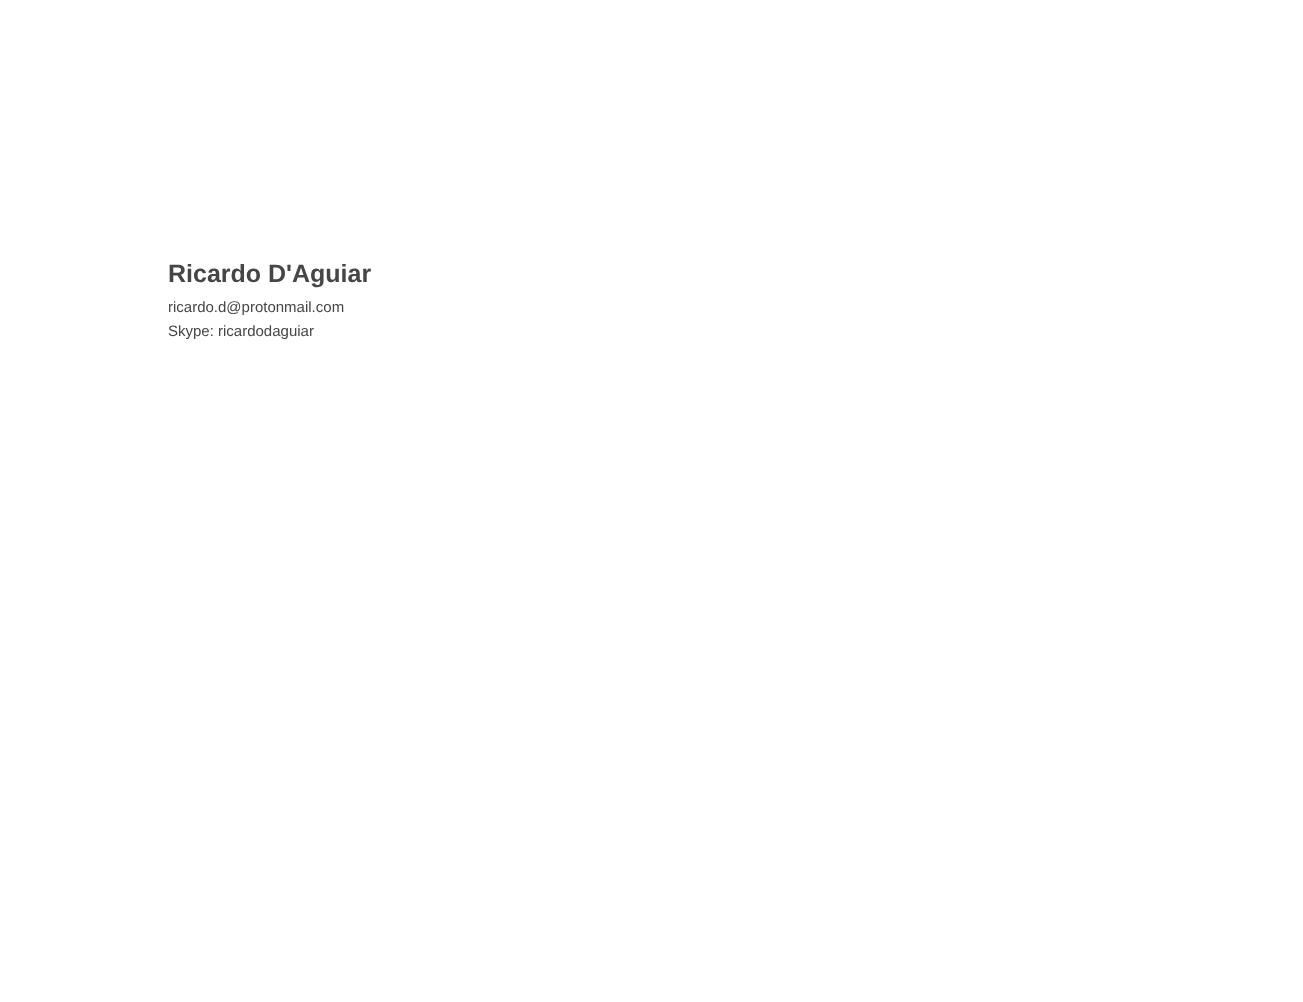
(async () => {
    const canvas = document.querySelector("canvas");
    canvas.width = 1303;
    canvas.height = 1002;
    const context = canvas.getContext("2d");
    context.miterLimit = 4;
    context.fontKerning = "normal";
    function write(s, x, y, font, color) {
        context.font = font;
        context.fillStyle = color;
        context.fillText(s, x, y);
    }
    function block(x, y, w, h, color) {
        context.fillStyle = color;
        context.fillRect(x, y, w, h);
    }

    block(0, 0, 1303, 1002, "rgb(255, 255, 255)");
    write("Ricardo D'Aguiar", 168, 282, "bold 25px Liberation Sans", "rgb(70, 70, 70)");
    write("ricardo.d@protonmail.com", 168, 312, "15px Liberation Sans", "rgb(70, 70, 70)");
    write("Skype: ricardodaguiar", 168, 336, "15px Liberation Sans", "rgb(70, 70, 70)");
})();
